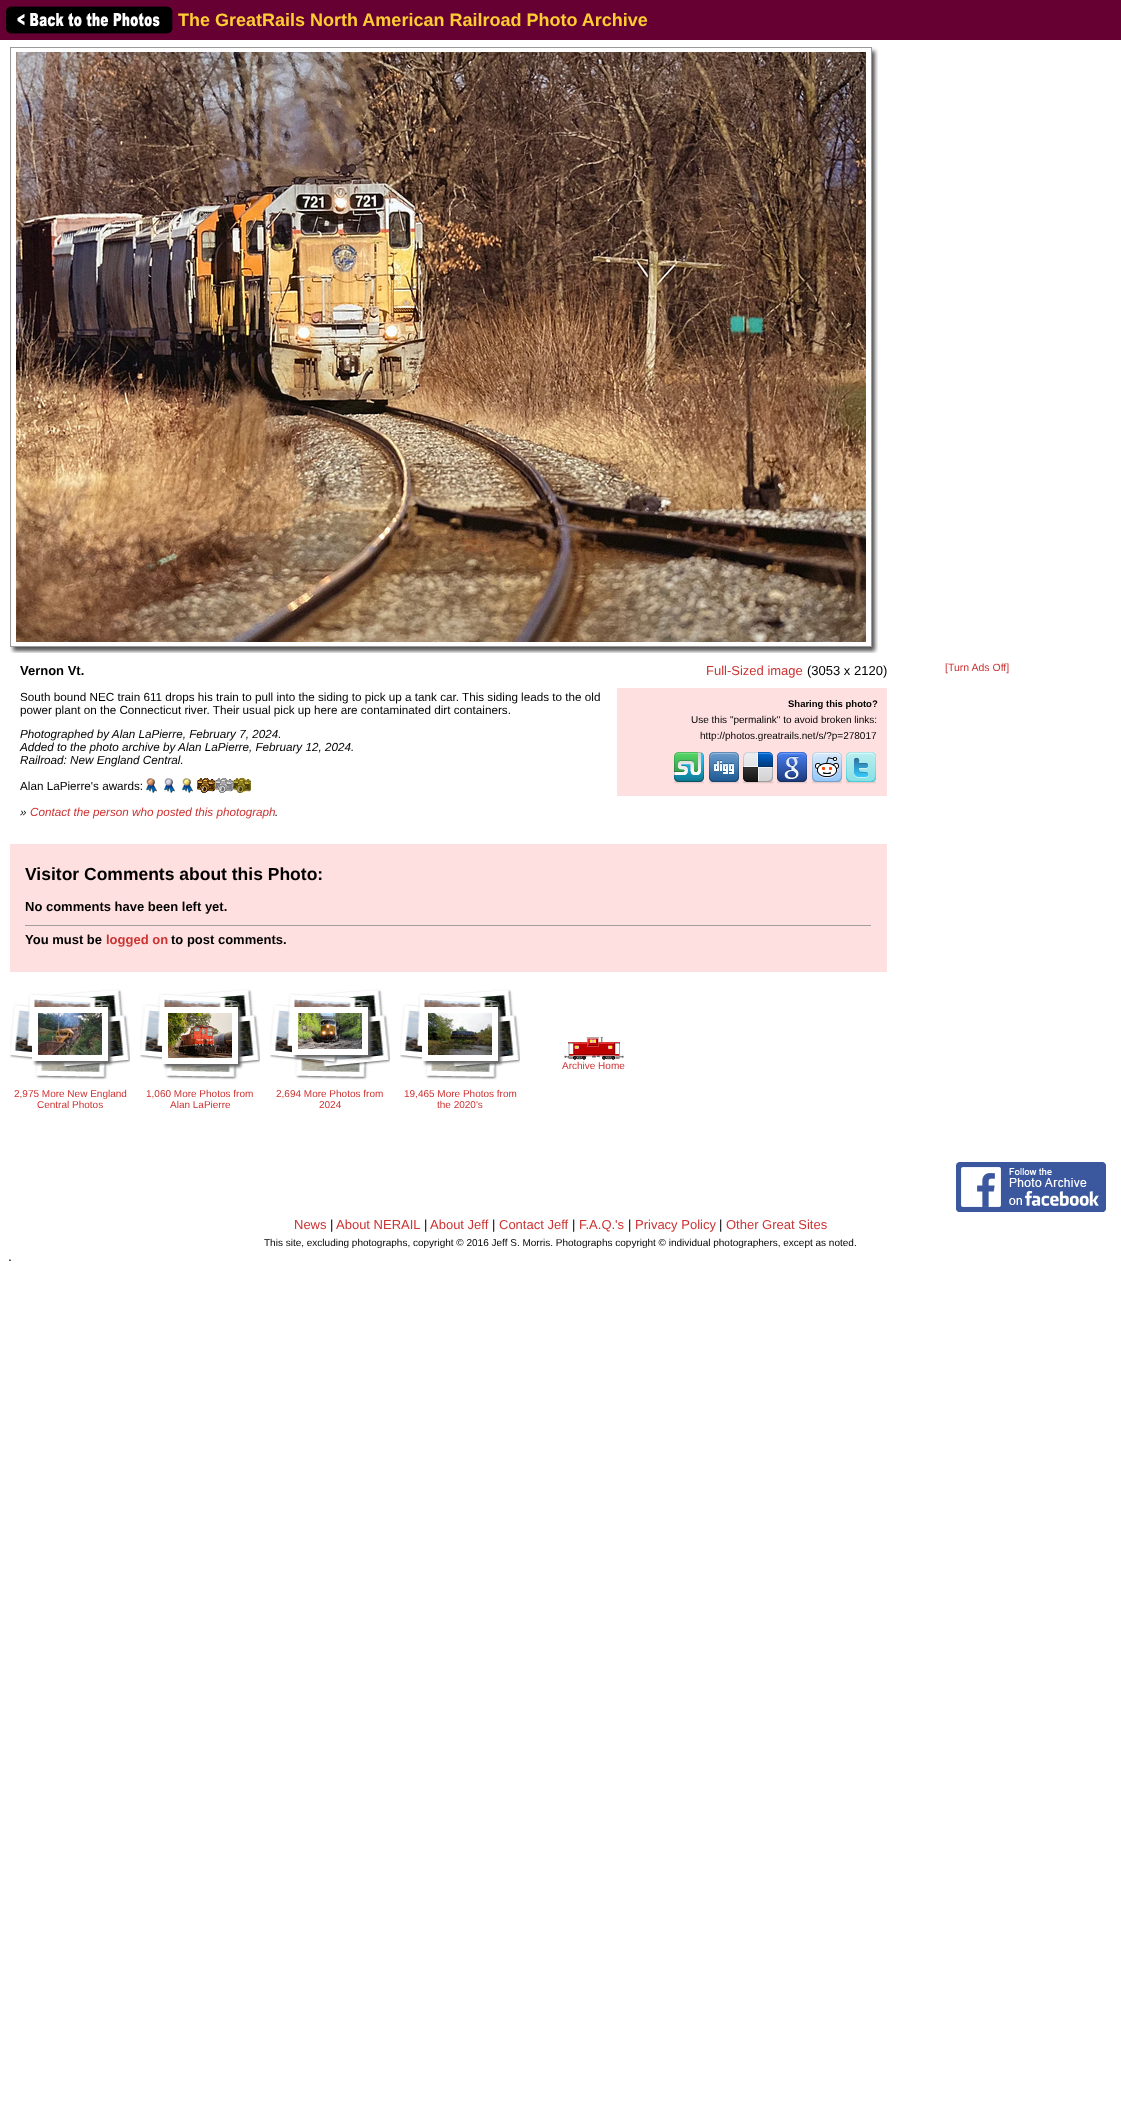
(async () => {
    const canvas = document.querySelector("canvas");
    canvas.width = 1121;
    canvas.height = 2116;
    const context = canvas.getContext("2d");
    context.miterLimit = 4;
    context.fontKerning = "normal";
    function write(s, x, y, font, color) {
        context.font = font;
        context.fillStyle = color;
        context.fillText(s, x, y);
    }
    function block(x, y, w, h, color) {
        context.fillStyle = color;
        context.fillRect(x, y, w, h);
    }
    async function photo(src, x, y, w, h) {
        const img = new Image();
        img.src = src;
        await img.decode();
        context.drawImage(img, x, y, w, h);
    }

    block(0, 0, 1121, 2116, "rgb(255, 255, 255)");
    block(0, 0, 1121, 40, "rgb(102, 0, 51)");
    await photo("media/1.png", 6, 6, 167, 28);
    write("The GreatRails North American Railroad Photo Archive", 178, 26, "bold 18px Liberation Sans", "rgb(255, 204, 51)");
    context.strokeStyle = "rgb(154, 154, 154)";
    context.strokeRect(10.5, 47.5, 861, 599);
    await photo("media/2.png", 16, 52, 850, 590);
    await photo("media/3.png", 872, 47, 6, 600);
    await photo("media/4.png", 10, 647, 862, 6);
    await photo("media/5.png", 872, 647, 6, 6);
    write("Vernon Vt.", 20, 675, "bold 13px Liberation Sans", "rgb(0, 0, 0)");
    write("South bound NEC train 611 drops his train to pull into the siding to pick up a tank car. This siding leads to the old", 20, 701, "11.7px Liberation Sans", "rgb(0, 0, 0)");
    write("power plant on the Connecticut river. Their usual pick up here are contaminated dirt containers.", 20, 714, "11.7px Liberation Sans", "rgb(0, 0, 0)");
    write("Photographed by Alan LaPierre, February 7, 2024.", 20, 738, "italic 11.7px Liberation Sans", "rgb(0, 0, 0)");
    write("Added to the photo archive by Alan LaPierre, February 12, 2024.", 20, 751, "italic 11.7px Liberation Sans", "rgb(0, 0, 0)");
    write("Railroad: New England Central.", 20, 764, "italic 11.7px Liberation Sans", "rgb(0, 0, 0)");
    write("Alan LaPierre's awards:", 20, 790, "11.7px Liberation Sans", "rgb(0, 0, 0)");
    await photo("media/6.png", 146, 778, 11, 15);
    await photo("media/7.png", 164, 778, 11, 15);
    await photo("media/8.png", 182, 778, 11, 15);
    await photo("media/9.png", 197, 778, 18, 15);
    await photo("media/10.png", 215, 778, 18, 15);
    await photo("media/11.png", 233, 778, 18, 15);
    write("»", 20, 816, "italic 11.7px Liberation Sans", "rgb(0, 0, 0)");
    write("Contact the person who posted this photograph", 30, 816, "italic 11.7px Liberation Sans", "rgb(204, 51, 51)");
    write(".", 275, 816, "italic 11.7px Liberation Sans", "rgb(0, 0, 0)");
    write("Full-Sized image", 706, 675, "13px Liberation Sans", "rgb(204, 51, 51)");
    write("(3053 x 2120)", 807, 675, "13px Liberation Sans", "rgb(0, 0, 0)");
    block(617, 688, 270, 108, "rgb(255, 224, 224)");
    write("Sharing this photo?", 788, 707, "bold 9.5px Liberation Sans", "rgb(0, 0, 0)");
    write("Use this \"permalink\" to avoid broken links:", 691, 723, "10px Liberation Sans", "rgb(0, 0, 0)");
    write("http://photos.greatrails.net/s/?p=278017", 700, 739, "10px Liberation Sans", "rgb(0, 0, 0)");
    await photo("media/12.png", 674, 752, 30, 32);
    await photo("media/13.png", 709, 752, 30, 32);
    await photo("media/14.png", 742, 752, 32, 32);
    await photo("media/15.png", 777, 752, 30, 32);
    await photo("media/16.png", 812, 752, 30, 32);
    await photo("media/17.png", 846, 752, 30, 32);
    write("[Turn Ads Off]", 945, 671, "10.5px Liberation Sans", "rgb(204, 51, 51)");
    block(10, 844, 877, 128, "rgb(255, 224, 224)");
    write("Visitor Comments about this Photo:", 25, 880, "bold 17.5px Liberation Sans", "rgb(0, 0, 0)");
    write("No comments have been left yet.", 25, 911, "bold 13px Liberation Sans", "rgb(0, 0, 0)");
    block(25, 925, 847, 1, "rgb(159, 159, 159)");
    block(871, 925, 1, 1, "rgb(238, 238, 238)");
    write("You must be", 25, 944, "bold 13px Liberation Sans", "rgb(0, 0, 0)");
    write("logged on", 106, 944, "bold 13px Liberation Sans", "rgb(204, 51, 51)");
    write("to post comments.", 171, 944, "bold 13px Liberation Sans", "rgb(0, 0, 0)");
    await photo("media/18.png", 564, 1037, 60, 23);
    write("Archive Home", 562, 1069, "10px Liberation Sans", "rgb(204, 51, 51)");
    await photo("media/19.png", 10, 989, 120, 91);
    context.fillStyle = "rgb(102, 102, 102)";
    context.filter = "blur(1.5px)";
    context.beginPath();
    context.rect(35, 1010, 76, 54);
    context.fill();
    context.filter = "none";
    block(32, 1007, 76, 54, "rgb(255, 255, 255)");
    await photo("media/20.png", 38, 1013, 64, 42);
    write("2,975 More New England", 14, 1097, "10px Liberation Sans", "rgb(204, 51, 51)");
    write("Central Photos", 37, 1108, "10px Liberation Sans", "rgb(204, 51, 51)");
    await photo("media/19.png", 140, 989, 120, 91);
    context.fillStyle = "rgb(102, 102, 102)";
    context.filter = "blur(1.5px)";
    context.beginPath();
    context.rect(165, 1010, 76, 57);
    context.fill();
    context.filter = "none";
    block(162, 1007, 76, 57, "rgb(255, 255, 255)");
    await photo("media/21.png", 168, 1013, 64, 45);
    write("1,060 More Photos from", 146, 1097, "10px Liberation Sans", "rgb(204, 51, 51)");
    write("Alan LaPierre", 170, 1108, "10px Liberation Sans", "rgb(204, 51, 51)");
    await photo("media/19.png", 270, 989, 120, 91);
    context.fillStyle = "rgb(102, 102, 102)";
    context.filter = "blur(1.5px)";
    context.beginPath();
    context.rect(295, 1010, 76, 48);
    context.fill();
    context.filter = "none";
    block(292, 1007, 76, 48, "rgb(255, 255, 255)");
    await photo("media/22.png", 298, 1013, 64, 36);
    write("2,694 More Photos from", 276, 1097, "10px Liberation Sans", "rgb(204, 51, 51)");
    write("2024", 319, 1108, "10px Liberation Sans", "rgb(204, 51, 51)");
    await photo("media/19.png", 400, 989, 120, 91);
    context.fillStyle = "rgb(102, 102, 102)";
    context.filter = "blur(1.5px)";
    context.beginPath();
    context.rect(425, 1010, 76, 54);
    context.fill();
    context.filter = "none";
    block(422, 1007, 76, 54, "rgb(255, 255, 255)");
    await photo("media/23.png", 428, 1013, 64, 42);
    write("19,465 More Photos from", 404, 1097, "10px Liberation Sans", "rgb(204, 51, 51)");
    write("the 2020's", 437, 1108, "10px Liberation Sans", "rgb(204, 51, 51)");
    await photo("media/24.png", 956, 1162, 150, 50);
    write("News", 294, 1229, "13px Liberation Sans", "rgb(204, 51, 51)");
    write("|", 330, 1229, "13px Liberation Sans", "rgb(0, 0, 0)");
    write("About NERAIL", 336, 1229, "13px Liberation Sans", "rgb(204, 51, 51)");
    write("|", 424, 1229, "13px Liberation Sans", "rgb(0, 0, 0)");
    write("About Jeff", 430, 1229, "13px Liberation Sans", "rgb(204, 51, 51)");
    write("|", 492, 1229, "13px Liberation Sans", "rgb(0, 0, 0)");
    write("Contact Jeff", 499, 1229, "13px Liberation Sans", "rgb(204, 51, 51)");
    write("|", 572, 1229, "13px Liberation Sans", "rgb(0, 0, 0)");
    write("F.A.Q.'s", 579, 1229, "13px Liberation Sans", "rgb(204, 51, 51)");
    write("|", 628, 1229, "13px Liberation Sans", "rgb(0, 0, 0)");
    write("Privacy Policy", 635, 1229, "13px Liberation Sans", "rgb(204, 51, 51)");
    write("|", 719, 1229, "13px Liberation Sans", "rgb(0, 0, 0)");
    write("Other Great Sites", 726, 1229, "13px Liberation Sans", "rgb(204, 51, 51)");
    write("This site, excluding photographs, copyright © 2016 Jeff S. Morris. Photographs copyright © individual photographers, except as noted.", 264, 1246, "10px Liberation Sans", "rgb(0, 0, 0)");
    write(".", 8, 1261, "14px Liberation Sans", "rgb(0, 0, 0)");
})();
